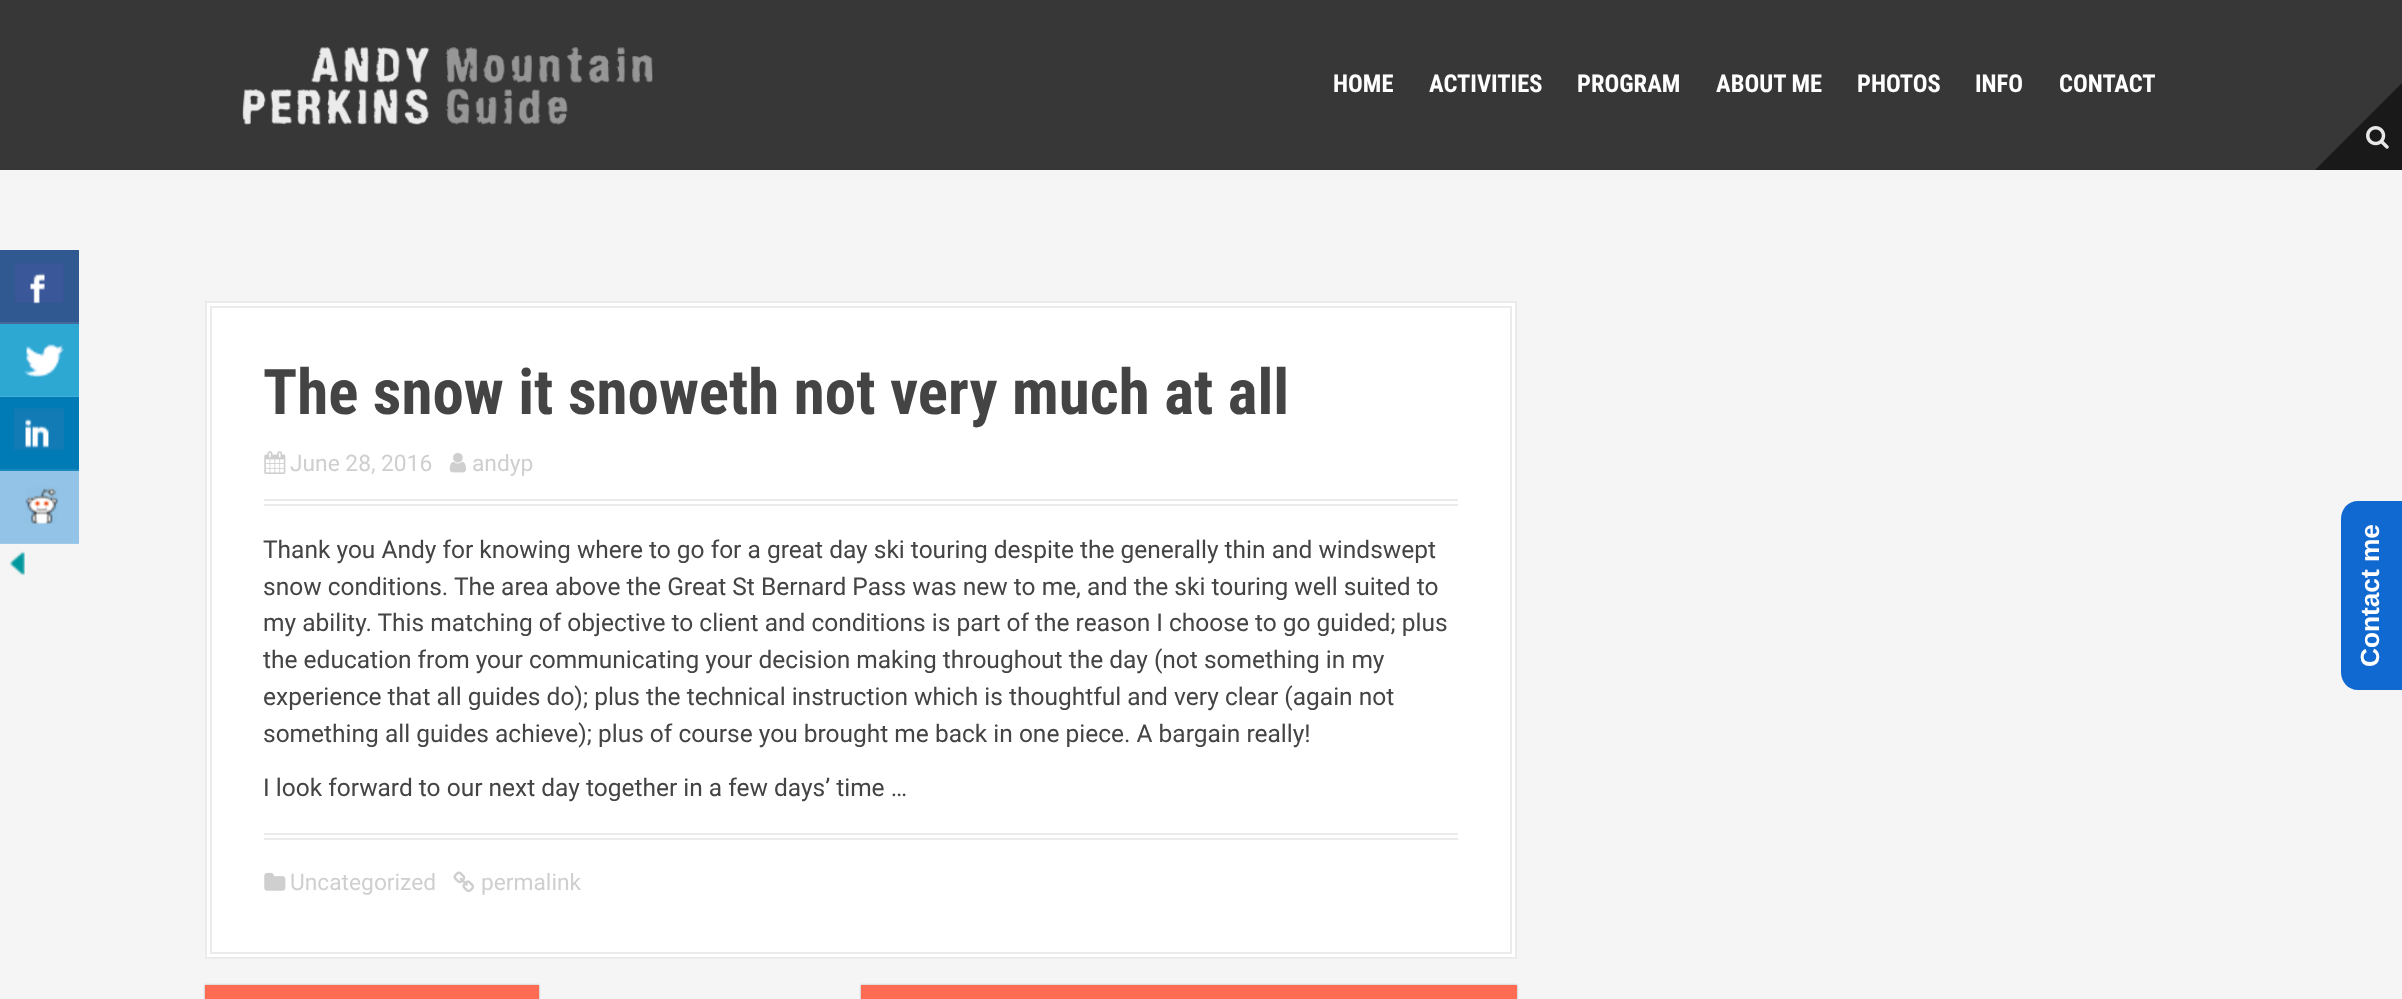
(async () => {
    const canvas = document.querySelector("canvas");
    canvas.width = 2402;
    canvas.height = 999;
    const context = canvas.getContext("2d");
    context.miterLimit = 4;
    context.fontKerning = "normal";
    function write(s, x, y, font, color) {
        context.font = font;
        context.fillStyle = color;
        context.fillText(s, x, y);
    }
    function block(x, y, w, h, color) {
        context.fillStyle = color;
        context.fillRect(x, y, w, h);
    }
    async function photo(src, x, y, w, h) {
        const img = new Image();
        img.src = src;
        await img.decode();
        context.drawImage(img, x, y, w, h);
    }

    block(0, 0, 2402, 999, "rgb(245, 245, 245)");
    block(0, 250, 79, 72, "rgb(48, 88, 145)");
    block(0, 322, 79, 2, "rgb(69, 105, 156)");
    await photo("media/1.png", 15, 263, 49, 41);
    block(0, 324, 79, 72, "rgb(44, 168, 210)");
    block(0, 396, 79, 1, "rgb(65, 177, 215)");
    await photo("media/2.png", 24, 344, 40, 33);
    block(0, 397, 79, 72, "rgb(0, 123, 182)");
    block(0, 469, 79, 2, "rgb(26, 136, 189)");
    await photo("media/3.png", 14, 408, 51, 42);
    block(0, 471, 79, 72, "rgb(147, 195, 230)");
    block(0, 543, 79, 1, "rgb(158, 201, 233)");
    await photo("media/4.png", 25, 487, 33, 37);
    await photo("media/5.png", 10, 551, 15, 25);
    block(0, 0, 2402, 170, "rgb(55, 55, 55)");
    await photo("media/6.png", 242, 47, 411, 78);
    write("HOME", 1333, 92, "bold 24.5px Roboto Condensed", "rgb(254, 254, 254)");
    write("ACTIVITIES", 1429, 92, "bold 24.5px Roboto Condensed", "rgb(254, 254, 254)");
    write("PROGRAM", 1577, 92, "bold 24.5px Roboto Condensed", "rgb(254, 254, 254)");
    write("ABOUT ME", 1716, 92, "bold 24.5px Roboto Condensed", "rgb(254, 254, 254)");
    write("PHOTOS", 1857, 92, "bold 24.5px Roboto Condensed", "rgb(254, 254, 254)");
    write("INFO", 1975, 92, "bold 24.5px Roboto Condensed", "rgb(254, 254, 254)");
    write("CONTACT", 2059, 92, "bold 24.5px Roboto Condensed", "rgb(254, 254, 254)");
    context.fillStyle = "rgb(25, 25, 25)";
    context.beginPath();
    context.moveTo(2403, 82);
    context.lineTo(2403, 170);
    context.lineTo(2315, 170);
    context.closePath();
    context.fill();
    await photo("media/7.png", 2366, 126, 23, 23);
    context.fillStyle = "rgb(255, 255, 255)";
    context.beginPath();
    context.rect(206, 302, 1310, 656);
    context.fill();
    context.strokeStyle = "rgb(235, 235, 235)";
    context.lineWidth = 2;
    context.stroke();
    context.strokeRect(211, 307, 1300, 646);
    block(264, 499, 1194, 2, "rgb(235, 235, 235)");
    block(264, 504, 1194, 2, "rgb(235, 235, 235)");
    write("The snow it snoweth not very much at all", 263, 414, "bold 63px Roboto Condensed", "rgb(68, 68, 68)");
    await photo("media/8.png", 264, 451, 22, 23);
    write("June 28, 2016", 290, 471, "22.75px Roboto", "rgb(207, 207, 207)");
    await photo("media/9.png", 449, 452, 17, 21);
    write("andyp", 472, 471, "22.75px Roboto", "rgb(207, 207, 207)");
    write("Thank you Andy for knowing where to go for a great day ski touring despite the generally thin and windswept", 263, 558, "24.5px Roboto", "rgb(68, 68, 68)");
    write("snow conditions. The area above the Great St Bernard Pass was new to me, and the ski touring well suited to", 263, 595, "24.5px Roboto", "rgb(68, 68, 68)");
    write("my ability. This matching of objective to client and conditions is part of the reason I choose to go guided; plus", 263, 631, "24.5px Roboto", "rgb(68, 68, 68)");
    write("the education from your communicating your decision making throughout the day (not something in my", 263, 668, "24.5px Roboto", "rgb(68, 68, 68)");
    write("experience that all guides do); plus the technical instruction which is thoughtful and very clear (again not", 263, 705, "24.5px Roboto", "rgb(68, 68, 68)");
    write("something all guides achieve); plus of course you brought me back in one piece. A bargain really!", 263, 742, "24.5px Roboto", "rgb(68, 68, 68)");
    write("I look forward to our next day together in a few days’ time …", 263, 796, "24.5px Roboto", "rgb(68, 68, 68)");
    block(264, 833, 1194, 2, "rgb(235, 235, 235)");
    block(264, 838, 1194, 2, "rgb(235, 235, 235)");
    await photo("media/10.png", 264, 872, 22, 19);
    write("Uncategorized", 290, 890, "22.75px Roboto", "rgb(207, 207, 207)");
    await photo("media/11.png", 453, 871, 22, 22);
    write("permalink", 481, 890, "22.75px Roboto", "rgb(207, 207, 207)");
    context.fillStyle = "rgb(173, 173, 173)";
    context.filter = "blur(1px)";
    context.beginPath();
    context.rect(205, 985, 334, 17);
    context.fill();
    context.filter = "none";
    block(205, 985, 334, 14, "rgb(255, 107, 83)");
    context.fillStyle = "rgb(173, 173, 173)";
    context.filter = "blur(1px)";
    context.beginPath();
    context.rect(861, 985, 656, 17);
    context.fill();
    context.filter = "none";
    block(861, 985, 656, 14, "rgb(255, 107, 83)");
    context.fillStyle = "rgb(16, 105, 209)";
    context.beginPath();
    context.moveTo(2341, 672);
    context.lineTo(2341, 519);
    context.bezierCurveTo(2341, 509, 2348, 501, 2358, 501);
    context.lineTo(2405, 501);
    context.lineTo(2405, 690);
    context.lineTo(2358, 690);
    context.bezierCurveTo(2348, 690, 2341, 682, 2341, 672);
    context.closePath();
    context.fill();
    context.font = "bold 26.25px Liberation Sans";
    context.fillStyle = "rgb(254, 254, 254)";
    context.save();
    context.translate(2379, 667);
    context.rotate(-90 * Math.PI / 180);
    context.fillText("Contact me", 0, 0);
    context.restore();
})();
